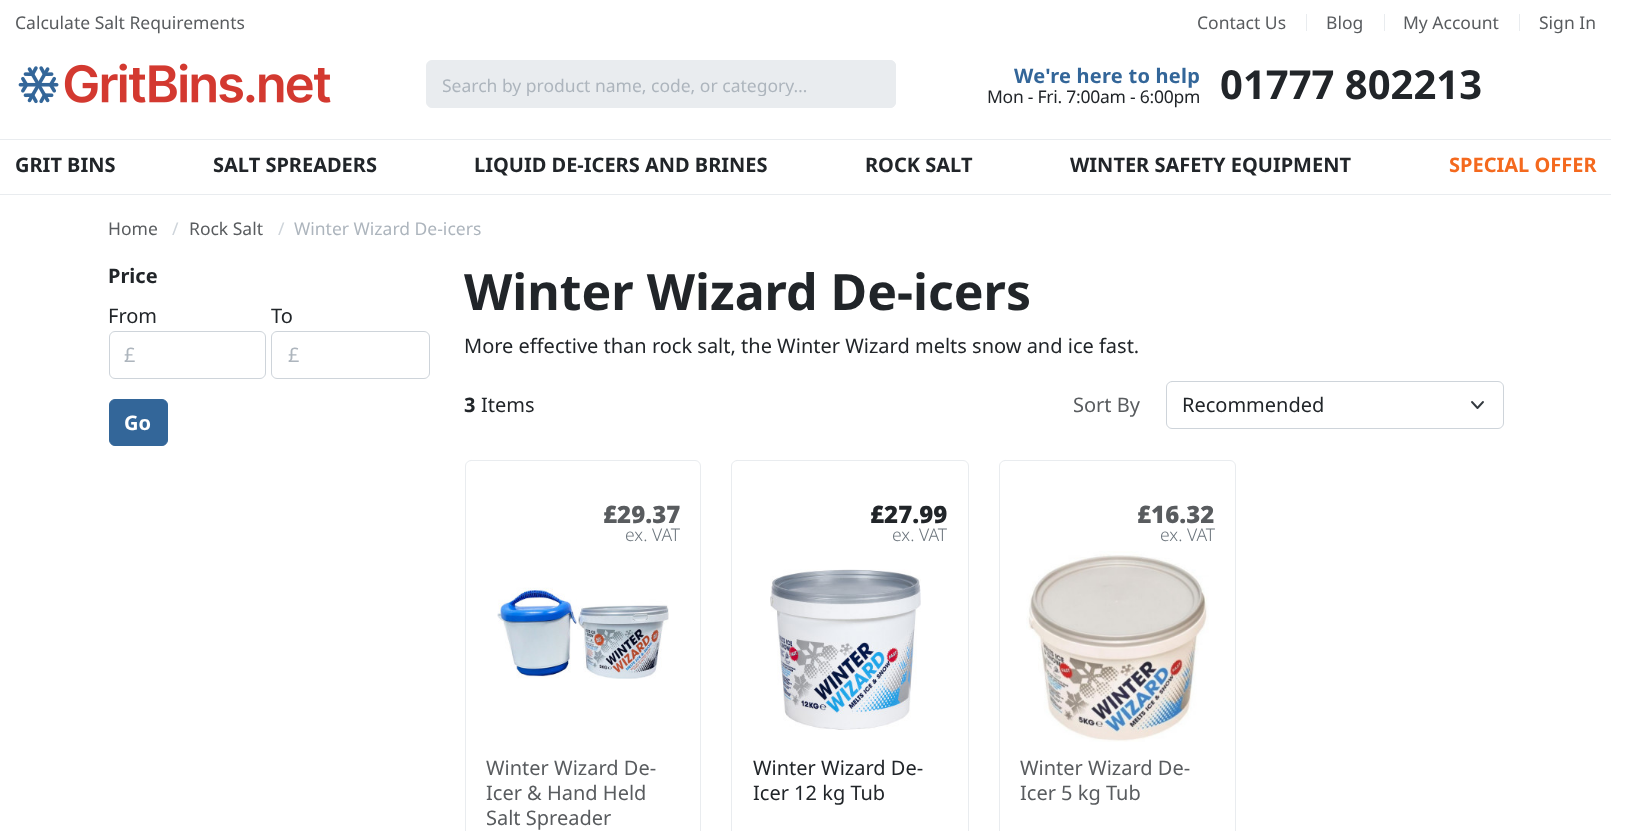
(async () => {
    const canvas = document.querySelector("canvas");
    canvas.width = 1630;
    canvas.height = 831;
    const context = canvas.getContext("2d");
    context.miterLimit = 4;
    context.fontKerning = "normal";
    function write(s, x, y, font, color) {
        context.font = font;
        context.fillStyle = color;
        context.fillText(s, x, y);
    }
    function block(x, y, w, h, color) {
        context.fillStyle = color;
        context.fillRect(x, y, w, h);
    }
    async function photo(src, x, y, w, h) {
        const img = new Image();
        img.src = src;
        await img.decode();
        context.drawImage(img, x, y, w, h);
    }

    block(0, 0, 1630, 831, "rgb(255, 255, 255)");
    write("Calculate Salt Requirements", 15, 29, "17.5px Noto Sans", "rgb(89, 92, 95)");
    write("Contact Us", 1197, 29, "17.5px Noto Sans", "rgb(89, 92, 95)");
    block(1306, 14, 1, 17, "rgb(233, 236, 239)");
    write("Blog", 1326, 29, "17.5px Noto Sans", "rgb(89, 92, 95)");
    block(1384, 14, 1, 17, "rgb(233, 236, 239)");
    write("My Account", 1403, 29, "17.5px Noto Sans", "rgb(89, 92, 95)");
    block(1519, 14, 1, 17, "rgb(233, 236, 239)");
    write("Sign In", 1539, 29, "17.5px Noto Sans", "rgb(89, 92, 95)");
    await photo("media/1.png", 18, 63, 313, 41);
    context.fillStyle = "rgb(233, 236, 239)";
    context.beginPath();
    context.roundRect(426.5, 60.5, 469, 47, 5.5);
    context.fill();
    context.strokeStyle = "rgb(233, 236, 239)";
    context.stroke();
    context.save();
    context.beginPath();
    context.rect(443, 73, 407, 23);
    context.clip();
    write("Search by product name, code, or category…", 442, 92, "17.5px Noto Sans", "rgb(173, 181, 189)");
    context.restore();
    context.save();
    context.beginPath();
    context.roundRect(848, 60, 48, 48, [0, 6, 6, 0]);
    context.clip();
    block(849, 60, 46, 48, "rgb(233, 236, 239)");
    block(895, 60, 1, 48, "rgb(233, 236, 239)");
    context.restore();
    context.letterSpacing = "0.25px";
    write("We're here to help", 1014, 83, "bold 20px Noto Sans", "rgb(51, 102, 153)");
    context.letterSpacing = "-0.25px";
    write("Mon - Fri. 7:00am - 6:00pm", 987, 103, "17.5px Noto Sans", "rgb(33, 37, 41)");
    context.letterSpacing = "0px";
    write("01777 802213", 1220, 99, "bold 40px Noto Sans", "rgb(33, 37, 41)");
    block(0, 139, 1611, 1, "rgb(233, 236, 239)");
    block(0, 194, 1611, 1, "rgb(233, 236, 239)");
    write("GRIT BINS", 15, 172, "bold 20px Noto Sans", "rgb(33, 37, 41)");
    write("SALT SPREADERS", 213, 172, "bold 20px Noto Sans", "rgb(33, 37, 41)");
    write("LIQUID DE-ICERS AND BRINES", 474, 172, "bold 20px Noto Sans", "rgb(33, 37, 41)");
    write("ROCK SALT", 865, 172, "bold 20px Noto Sans", "rgb(33, 37, 41)");
    write("WINTER SAFETY EQUIPMENT", 1070, 172, "bold 20px Noto Sans", "rgb(33, 37, 41)");
    write("SPECIAL OFFER", 1449, 172, "bold 20px Noto Sans", "rgb(244, 105, 30)");
    write("Home", 108, 235, "17.5px Noto Sans", "rgb(89, 92, 95)");
    write("/", 172, 235, "17.5px Noto Sans", "rgb(206, 212, 218)");
    write("Rock Salt", 189, 235, "17.5px Noto Sans", "rgb(89, 92, 95)");
    write("/", 278, 235, "17.5px Noto Sans", "rgb(206, 212, 218)");
    write("Winter Wizard De-icers", 294, 235, "17.5px Noto Sans", "rgb(173, 181, 189)");
    write("Price", 108, 283, "bold 20px Noto Sans", "rgb(33, 37, 41)");
    write("From", 108, 323, "20px Noto Sans", "rgb(33, 37, 41)");
    context.beginPath();
    context.roundRect(109.5, 331.5, 156, 47, 5.5);
    context.strokeStyle = "rgb(206, 212, 218)";
    context.stroke();
    write("£", 124, 362, "20px Noto Sans", "rgb(173, 181, 189)");
    write("To", 271, 323, "20px Noto Sans", "rgb(33, 37, 41)");
    context.beginPath();
    context.roundRect(271.5, 331.5, 158, 47, 5.5);
    context.stroke();
    write("£", 288, 362, "20px Noto Sans", "rgb(173, 181, 189)");
    context.fillStyle = "rgb(51, 102, 153)";
    context.beginPath();
    context.roundRect(109.5, 399.5, 58, 46, 5.5);
    context.fill();
    context.strokeStyle = "rgb(51, 102, 153)";
    context.stroke();
    write("Go", 124, 430, "bold 20px Noto Sans", "rgb(255, 255, 255)");
    write("Winter Wizard De-icers", 464, 310, "bold 50px Noto Sans", "rgb(33, 37, 41)");
    write("More effective than rock salt, the Winter Wizard melts snow and ice fast.", 464, 353, "20px Noto Sans", "rgb(33, 37, 41)");
    write("3", 464, 412, "bold 20px Noto Sans", "rgb(33, 37, 41)");
    write("Items", 481, 412, "20px Noto Sans", "rgb(33, 37, 41)");
    write("Sort By", 1073, 412, "20px Noto Sans", "rgb(89, 92, 95)");
    context.beginPath();
    context.moveTo(1472, 402);
    context.lineTo(1477.5, 408);
    context.lineTo(1483, 402);
    context.strokeStyle = "rgb(52, 58, 64)";
    context.lineWidth = 1.9;
    context.lineCap = "round";
    context.lineJoin = "round";
    context.stroke();
    context.beginPath();
    context.roundRect(1166.5, 381.5, 337, 47, 5.5);
    context.strokeStyle = "rgb(206, 212, 218)";
    context.lineWidth = 1;
    context.lineJoin = "miter";
    context.stroke();
    write("Recommended", 1182, 412, "20px Noto Sans", "rgb(33, 37, 41)");
    context.beginPath();
    context.roundRect(465.5, 460.5, 235, 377, 5.5);
    context.strokeStyle = "rgb(233, 236, 239)";
    context.stroke();
    write("£29.37", 603, 523, "900 24px Noto Sans", "rgb(89, 92, 95)");
    write("ex. VAT", 625, 541, "300 17.5px Noto Sans", "rgb(108, 117, 125)");
    await photo("media/2.png", 497, 587, 172, 92);
    write("Winter Wizard De-", 486, 775, "20px Noto Sans", "rgb(89, 92, 95)");
    write("Icer & Hand Held", 486, 800, "20px Noto Sans", "rgb(89, 92, 95)");
    write("Salt Spreader", 486, 825, "20px Noto Sans", "rgb(89, 92, 95)");
    context.beginPath();
    context.roundRect(731.5, 460.5, 237, 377, 5.5);
    context.stroke();
    write("£27.99", 870, 523, "900 24px Noto Sans", "rgb(33, 37, 41)");
    write("ex. VAT", 892, 541, "300 17.5px Noto Sans", "rgb(108, 117, 125)");
    await photo("media/3.png", 770, 569, 151, 161);
    write("Winter Wizard De-", 753, 775, "20px Noto Sans", "rgb(33, 37, 41)");
    write("Icer 12 kg Tub", 753, 800, "20px Noto Sans", "rgb(33, 37, 41)");
    context.beginPath();
    context.roundRect(999.5, 460.5, 236, 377, 5.5);
    context.stroke();
    write("£16.32", 1137, 523, "900 24px Noto Sans", "rgb(89, 92, 95)");
    write("ex. VAT", 1160, 541, "300 17.5px Noto Sans", "rgb(108, 117, 125)");
    await photo("media/4.png", 1026, 551, 183, 191);
    write("Winter Wizard De-", 1020, 775, "20px Noto Sans", "rgb(89, 92, 95)");
    write("Icer 5 kg Tub", 1020, 800, "20px Noto Sans", "rgb(89, 92, 95)");
})();
